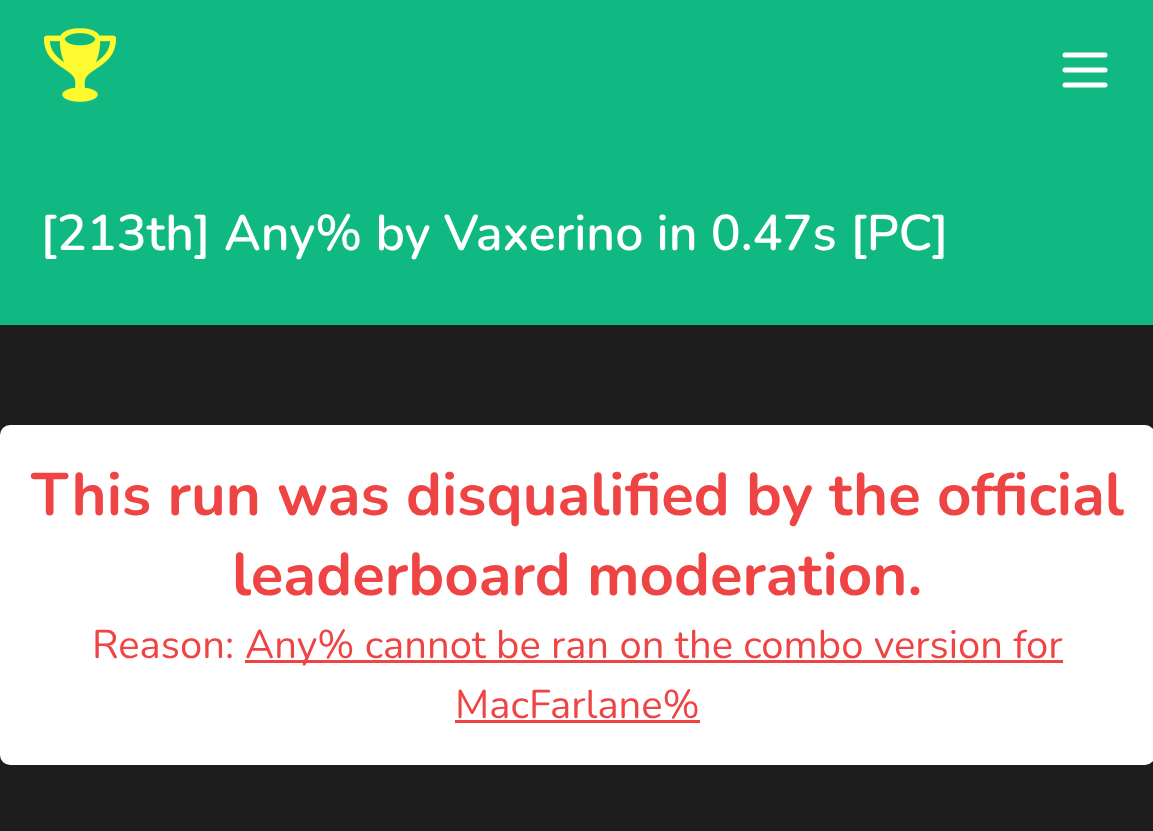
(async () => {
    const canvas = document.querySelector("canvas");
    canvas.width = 1153;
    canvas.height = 831;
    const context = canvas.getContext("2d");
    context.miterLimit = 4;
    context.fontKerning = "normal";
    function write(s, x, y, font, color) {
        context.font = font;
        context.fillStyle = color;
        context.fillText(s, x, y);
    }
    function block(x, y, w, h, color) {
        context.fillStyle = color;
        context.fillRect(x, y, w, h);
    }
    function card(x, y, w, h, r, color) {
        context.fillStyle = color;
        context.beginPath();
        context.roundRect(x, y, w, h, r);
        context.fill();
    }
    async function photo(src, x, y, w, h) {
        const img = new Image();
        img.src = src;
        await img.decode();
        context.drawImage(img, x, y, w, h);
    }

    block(0, 0, 1153, 831, "rgb(29, 29, 29)");
    block(0, 0, 1153, 143, "rgb(16, 185, 129)");
    await photo("media/1.png", 44, 28, 72, 74);
    context.beginPath();
    context.moveTo(1065, 55);
    context.lineTo(1105, 55);
    context.moveTo(1065, 70);
    context.lineTo(1105, 70);
    context.moveTo(1065, 85);
    context.lineTo(1105, 85);
    context.strokeStyle = "rgb(255, 255, 255)";
    context.lineWidth = 5;
    context.lineCap = "round";
    context.lineJoin = "round";
    context.stroke();
    block(0, 143, 1153, 182, "rgb(16, 185, 129)");
    write("[213th] Any% by Vaxerino in 0.47s [PC]", 40, 250, "600 50px Nunito", "rgb(255, 255, 255)");
    card(0, 425, 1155, 340, 10, "rgb(255, 255, 255)");
    write("This run was disqualified by the official", 31, 515, "bold 60px Nunito", "rgb(239, 68, 68)");
    write("leaderboard moderation.", 232, 595, "bold 60px Nunito", "rgb(239, 68, 68)");
    write("Reason:", 92, 658, "40px Nunito", "rgb(239, 68, 68)");
    block(245, 660, 818, 3, "rgb(239, 68, 68)");
    write("Any% cannot be ran on the combo version for", 245, 658, "40px Nunito", "rgb(239, 68, 68)");
    write("MacFarlane%", 455, 718, "40px Nunito", "rgb(239, 68, 68)");
    block(455, 720, 245, 3, "rgb(239, 68, 68)");
})();
